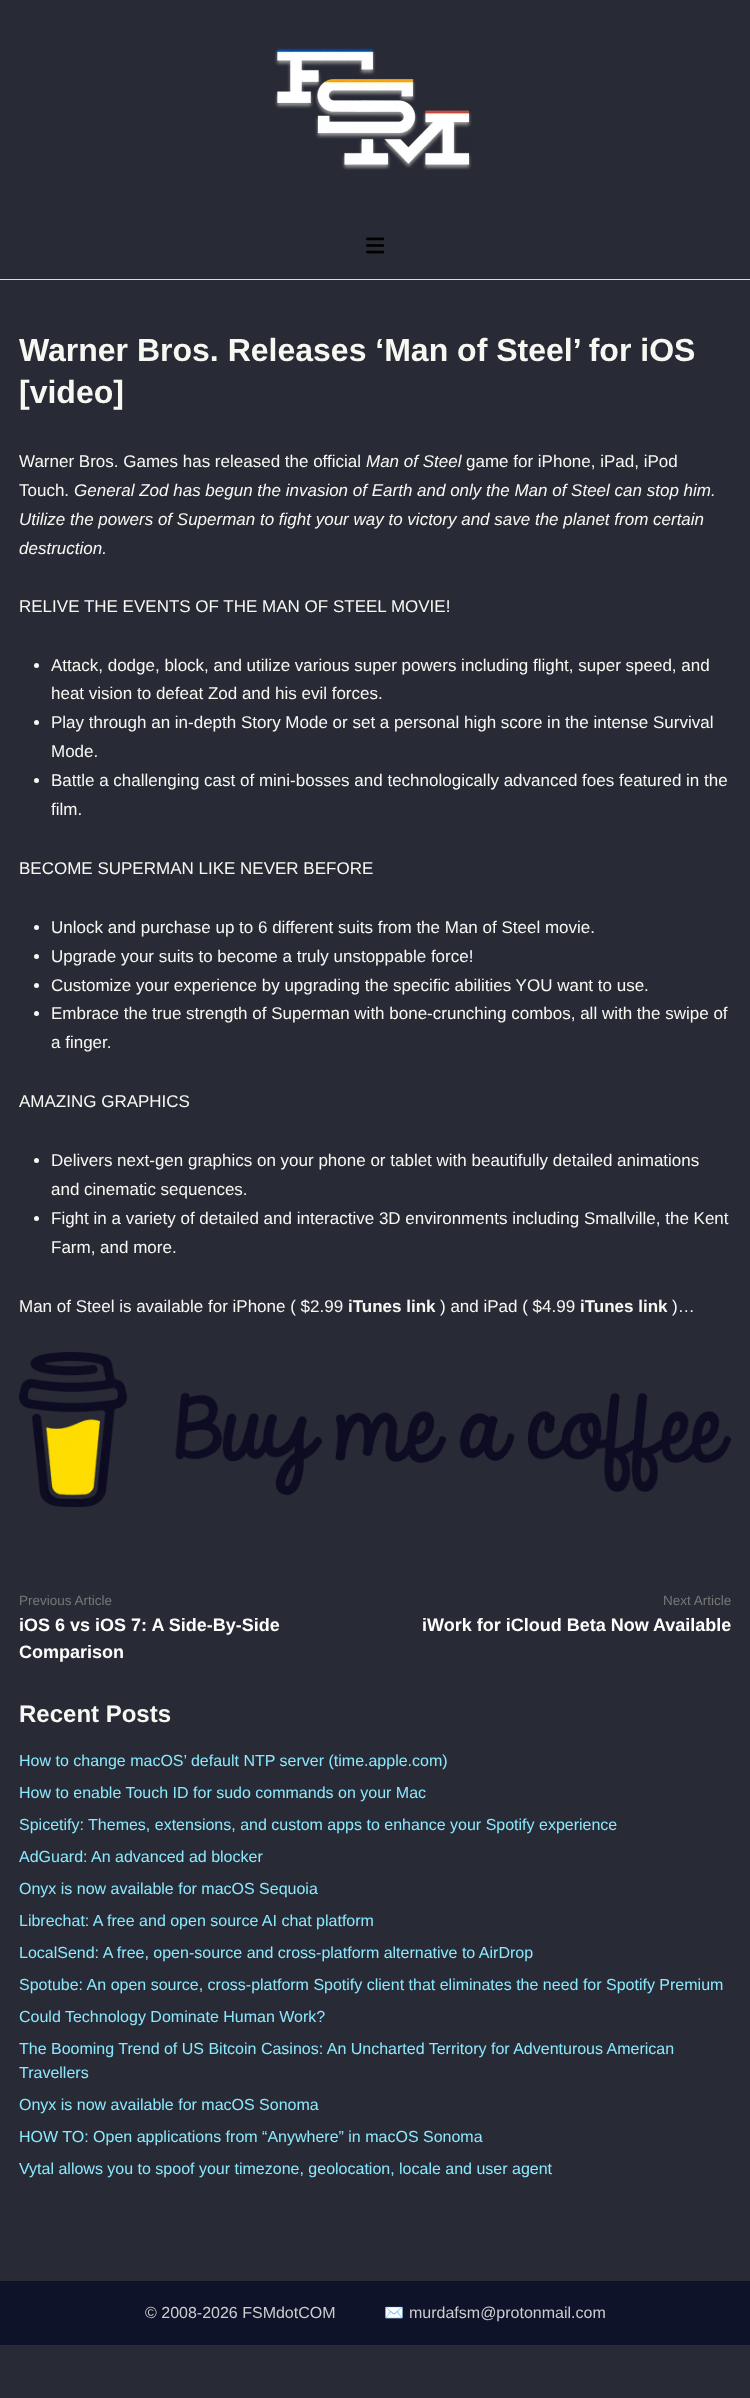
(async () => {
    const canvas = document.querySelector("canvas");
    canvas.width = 750;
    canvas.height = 2398;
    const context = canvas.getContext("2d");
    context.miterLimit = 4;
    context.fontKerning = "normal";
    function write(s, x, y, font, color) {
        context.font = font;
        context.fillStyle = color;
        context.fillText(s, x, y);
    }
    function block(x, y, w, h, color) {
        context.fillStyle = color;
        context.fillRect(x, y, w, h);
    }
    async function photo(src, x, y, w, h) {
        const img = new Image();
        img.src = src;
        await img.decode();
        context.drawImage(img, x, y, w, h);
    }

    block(0, 0, 750, 2398, "rgb(40, 42, 54)");
    block(0, 279, 750, 1, "rgb(221, 221, 221)");
    await photo("media/1.png", 274, 48, 198, 122);
    await photo("media/2.png", 366, 237, 18, 17);
    write("Warner Bros. Releases ‘Man of Steel’ for iOS", 19, 361, "bold 32px Liberation Sans", "rgb(248, 248, 242)");
    write("[video]", 19, 403, "bold 32px Liberation Sans", "rgb(248, 248, 242)");
    write("Warner Bros. Games has released the official", 19, 467, "17px Liberation Sans", "rgb(248, 248, 242)");
    write("Man of Steel", 366, 467, "italic 17px Liberation Sans", "rgb(248, 248, 242)");
    write("game for iPhone, iPad, iPod", 466, 467, "17px Liberation Sans", "rgb(248, 248, 242)");
    write("Touch.", 19, 496, "17px Liberation Sans", "rgb(248, 248, 242)");
    write("General Zod has begun the invasion of Earth and only the Man of Steel can stop him.", 74, 496, "italic 17px Liberation Sans", "rgb(248, 248, 242)");
    write("Utilize the powers of Superman to fight your way to victory and save the planet from certain", 19, 525, "italic 17px Liberation Sans", "rgb(248, 248, 242)");
    write("destruction.", 19, 554, "italic 17px Liberation Sans", "rgb(248, 248, 242)");
    write("RELIVE THE EVENTS OF THE MAN OF STEEL MOVIE!", 19, 612, "17px Liberation Sans", "rgb(248, 248, 242)");
    context.beginPath();
    context.arc(36.5, 665.5, 2.5, 0, Math.PI * 2);
    context.fill();
    write("Attack, dodge, block, and utilize various super powers including flight, super speed, and", 51, 671, "17px Liberation Sans", "rgb(248, 248, 242)");
    write("heat vision to defeat Zod and his evil forces.", 51, 699, "17px Liberation Sans", "rgb(248, 248, 242)");
    context.beginPath();
    context.arc(36.5, 722.5, 2.5, 0, Math.PI * 2);
    context.fill();
    write("Play through an in-depth Story Mode or set a personal high score in the intense Survival", 51, 728, "17px Liberation Sans", "rgb(248, 248, 242)");
    write("Mode.", 51, 757, "17px Liberation Sans", "rgb(248, 248, 242)");
    context.beginPath();
    context.arc(36.5, 780.5, 2.5, 0, Math.PI * 2);
    context.fill();
    write("Battle a challenging cast of mini-bosses and technologically advanced foes featured in the", 51, 786, "17px Liberation Sans", "rgb(248, 248, 242)");
    write("film.", 51, 815, "17px Liberation Sans", "rgb(248, 248, 242)");
    write("BECOME SUPERMAN LIKE NEVER BEFORE", 19, 874, "17px Liberation Sans", "rgb(248, 248, 242)");
    context.beginPath();
    context.arc(36.5, 927.5, 2.5, 0, Math.PI * 2);
    context.fill();
    write("Unlock and purchase up to 6 different suits from the Man of Steel movie.", 51, 933, "17px Liberation Sans", "rgb(248, 248, 242)");
    context.beginPath();
    context.arc(36.5, 956.5, 2.5, 0, Math.PI * 2);
    context.fill();
    write("Upgrade your suits to become a truly unstoppable force!", 51, 962, "17px Liberation Sans", "rgb(248, 248, 242)");
    context.beginPath();
    context.arc(36.5, 985.5, 2.5, 0, Math.PI * 2);
    context.fill();
    write("Customize your experience by upgrading the specific abilities YOU want to use.", 51, 991, "17px Liberation Sans", "rgb(248, 248, 242)");
    context.beginPath();
    context.arc(36.5, 1013.5, 2.5, 0, Math.PI * 2);
    context.fill();
    write("Embrace the true strength of Superman with bone-crunching combos, all with the swipe of", 51, 1019, "17px Liberation Sans", "rgb(248, 248, 242)");
    write("a finger.", 51, 1048, "17px Liberation Sans", "rgb(248, 248, 242)");
    write("AMAZING GRAPHICS", 19, 1107, "17px Liberation Sans", "rgb(248, 248, 242)");
    context.beginPath();
    context.arc(36.5, 1160.5, 2.5, 0, Math.PI * 2);
    context.fill();
    write("Delivers next-gen graphics on your phone or tablet with beautifully detailed animations", 51, 1166, "17px Liberation Sans", "rgb(248, 248, 242)");
    write("and cinematic sequences.", 51, 1195, "17px Liberation Sans", "rgb(248, 248, 242)");
    context.beginPath();
    context.arc(36.5, 1218.5, 2.5, 0, Math.PI * 2);
    context.fill();
    write("Fight in a variety of detailed and interactive 3D environments including Smallville, the Kent", 51, 1224, "17px Liberation Sans", "rgb(248, 248, 242)");
    write("Farm, and more.", 51, 1253, "17px Liberation Sans", "rgb(248, 248, 242)");
    write("Man of Steel is available for iPhone ( $2.99", 19, 1312, "17px Liberation Sans", "rgb(248, 248, 242)");
    write("iTunes link", 348, 1312, "bold 17px Liberation Sans", "rgb(248, 248, 242)");
    write(") and iPad ( $4.99", 440, 1312, "17px Liberation Sans", "rgb(248, 248, 242)");
    write("iTunes link", 580, 1312, "bold 17px Liberation Sans", "rgb(248, 248, 242)");
    write(")…", 672, 1312, "17px Liberation Sans", "rgb(248, 248, 242)");
    await photo("media/3.png", 19, 1352, 712, 155);
    write("Previous Article", 19, 1605, "13.5px Liberation Sans", "rgb(120, 120, 120)");
    write("iOS 6 vs iOS 7: A Side-By-Side", 19, 1631, "bold 18px Liberation Sans", "rgb(255, 255, 255)");
    write("Comparison", 19, 1658, "bold 18px Liberation Sans", "rgb(255, 255, 255)");
    write("Next Article", 663, 1605, "13.5px Liberation Sans", "rgb(120, 120, 120)");
    write("iWork for iCloud Beta Now Available", 422, 1631, "bold 18px Liberation Sans", "rgb(255, 255, 255)");
    write("Recent Posts", 19, 1722, "bold 24px Liberation Sans", "rgb(248, 248, 242)");
    write("How to change macOS’ default NTP server (time.apple.com)", 19, 1766, "16px Liberation Sans", "rgb(139, 233, 253)");
    write("How to enable Touch ID for sudo commands on your Mac", 19, 1798, "16px Liberation Sans", "rgb(139, 233, 253)");
    write("Spicetify: Themes, extensions, and custom apps to enhance your Spotify experience", 19, 1830, "16px Liberation Sans", "rgb(139, 233, 253)");
    write("AdGuard: An advanced ad blocker", 19, 1862, "16px Liberation Sans", "rgb(139, 233, 253)");
    write("Onyx is now available for macOS Sequoia", 19, 1894, "16px Liberation Sans", "rgb(139, 233, 253)");
    write("Librechat: A free and open source AI chat platform", 19, 1926, "16px Liberation Sans", "rgb(139, 233, 253)");
    write("LocalSend: A free, open-source and cross-platform alternative to AirDrop", 19, 1958, "16px Liberation Sans", "rgb(139, 233, 253)");
    write("Spotube: An open source, cross-platform Spotify client that eliminates the need for Spotify Premium", 19, 1990, "16px Liberation Sans", "rgb(139, 233, 253)");
    write("Could Technology Dominate Human Work?", 19, 2022, "16px Liberation Sans", "rgb(139, 233, 253)");
    write("The Booming Trend of US Bitcoin Casinos: An Uncharted Territory for Adventurous American", 19, 2054, "16px Liberation Sans", "rgb(139, 233, 253)");
    write("Travellers", 19, 2078, "16px Liberation Sans", "rgb(139, 233, 253)");
    write("Onyx is now available for macOS Sonoma", 19, 2110, "16px Liberation Sans", "rgb(139, 233, 253)");
    write("HOW TO: Open applications from “Anywhere” in macOS Sonoma", 19, 2142, "16px Liberation Sans", "rgb(139, 233, 253)");
    write("Vytal allows you to spoof your timezone, geolocation, locale and user agent", 19, 2174, "16px Liberation Sans", "rgb(139, 233, 253)");
    block(0, 2281, 750, 64, "rgb(15, 19, 41)");
    write("© 2008-2026 FSMdotCOM", 145, 2318, "16px Liberation Sans", "rgb(204, 204, 204)");
    write("✉️", 384, 2318, "16px Noto Color Emoji", "rgb(204, 204, 204)");
    write("murdafsm@protonmail.com", 409, 2318, "16px Liberation Sans", "rgb(204, 204, 204)");
})();
